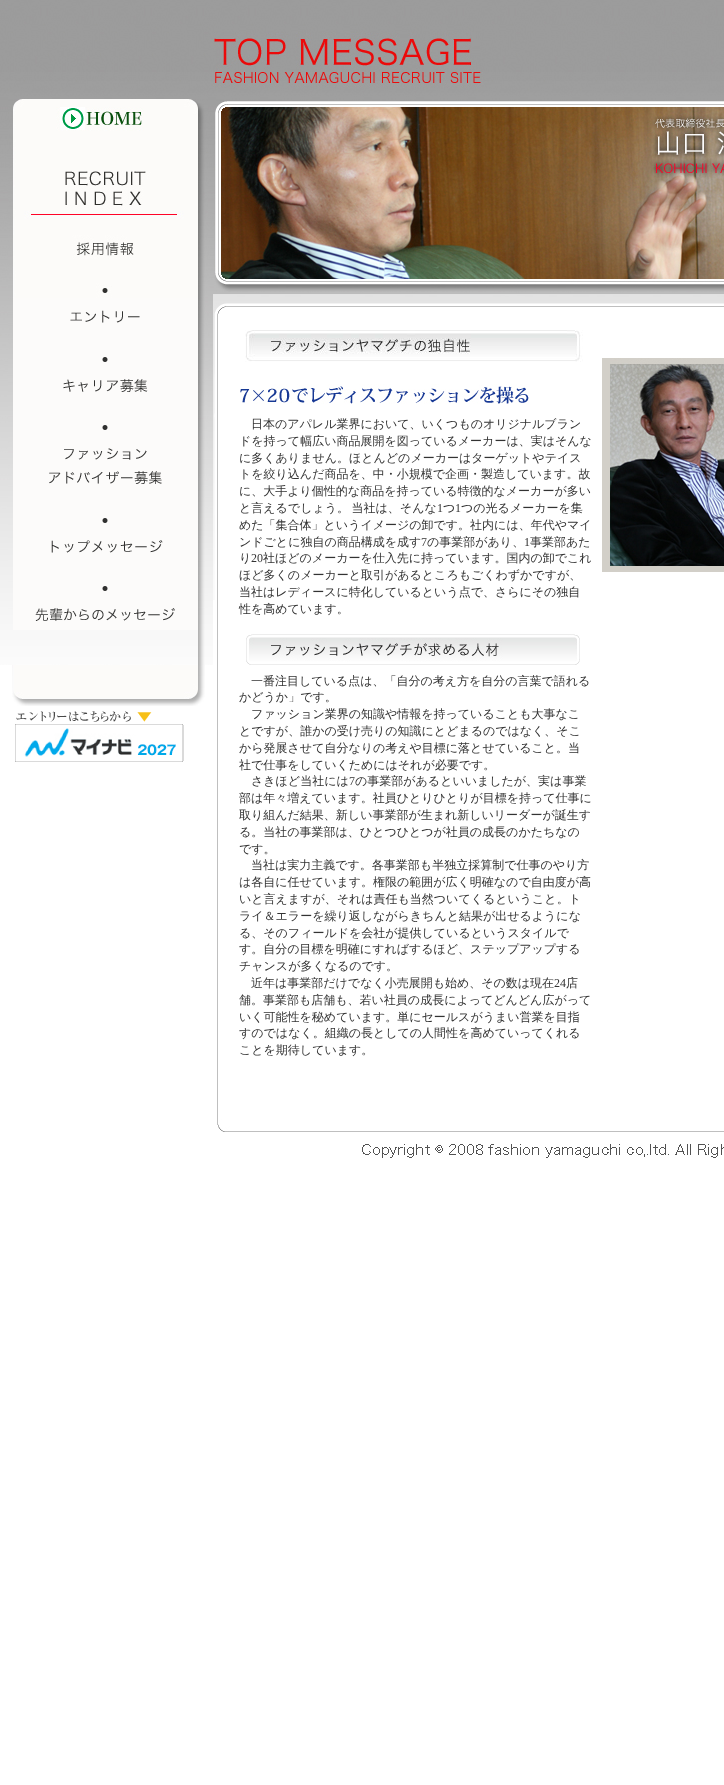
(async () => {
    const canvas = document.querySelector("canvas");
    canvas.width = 724;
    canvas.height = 1785;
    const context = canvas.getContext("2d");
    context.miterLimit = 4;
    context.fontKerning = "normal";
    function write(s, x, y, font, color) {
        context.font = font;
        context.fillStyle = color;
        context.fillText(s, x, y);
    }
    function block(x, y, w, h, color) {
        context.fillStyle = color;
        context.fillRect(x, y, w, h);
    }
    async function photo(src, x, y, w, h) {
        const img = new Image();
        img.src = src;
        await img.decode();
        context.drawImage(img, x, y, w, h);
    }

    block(0, 0, 724, 1785, "rgb(255, 255, 255)");
    await photo("media/1.png", 0, 0, 724, 665);
    await photo("media/2.png", 213, 32, 270, 56);
    await photo("media/3.png", 13, 99, 185, 199);
    await photo("media/4.png", 13, 298, 185, 68);
    await photo("media/5.png", 13, 366, 185, 33);
    await photo("media/6.png", 13, 399, 185, 95);
    await photo("media/7.png", 13, 494, 185, 71);
    await photo("media/8.png", 13, 565, 185, 65);
    await photo("media/9.png", 12, 665, 186, 41);
    await photo("media/10.png", 15, 711, 169, 51);
    await photo("media/11.png", 198, 103, 7, 601);
    await photo("media/12.png", 214, 101, 510, 191);
    await photo("media/13.png", 213, 294, 511, 28);
    block(217, 709, 1, 409, "rgb(191, 191, 191)");
    await photo("media/14.png", 213, 322, 26, 387);
    await photo("media/15.png", 213, 322, 2, 278);
    block(239, 322, 485, 343, "rgb(255, 255, 255)");
    await photo("media/16.png", 245, 330, 338, 32);
    await photo("media/17.png", 240, 384, 289, 20);
    write("日本のアパレル業界において、いくつものオリジナルブラン", 251, 428, "500 12px WenQuanYi Zen Hei", "rgb(51, 51, 51)");
    write("ドを持って幅広い商品展開を図っているメーカーは、実はそんな", 239, 445, "500 12px WenQuanYi Zen Hei", "rgb(51, 51, 51)");
    write("に多くありません。ほとんどのメーカーはターゲットやテイス", 239, 462, "500 12px WenQuanYi Zen Hei", "rgb(51, 51, 51)");
    write("トを絞り込んだ商品を、中・小規模で企画・製造しています。故", 239, 478, "500 12px WenQuanYi Zen Hei", "rgb(51, 51, 51)");
    write("に、大手より個性的な商品を持っている特徴的なメーカーが多い", 239, 495, "500 12px WenQuanYi Zen Hei", "rgb(51, 51, 51)");
    context.wordSpacing = "-1px";
    write("と言えるでしょう。 当社は、そんな", 239, 512, "500 12px WenQuanYi Zen Hei", "rgb(51, 51, 51)");
    context.wordSpacing = "0px";
    write("1", 437, 512, "12px Liberation Serif", "rgb(51, 51, 51)");
    write("つ", 443, 512, "500 12px WenQuanYi Zen Hei", "rgb(51, 51, 51)");
    write("1", 455, 512, "12px Liberation Serif", "rgb(51, 51, 51)");
    write("つの光るメーカーを集", 461, 512, "500 12px WenQuanYi Zen Hei", "rgb(51, 51, 51)");
    write("めた「集合体」というイメージの卸です。社内には、年代やマイ", 239, 529, "500 12px WenQuanYi Zen Hei", "rgb(51, 51, 51)");
    write("ンドごとに独自の商品構成を成す", 239, 546, "500 12px WenQuanYi Zen Hei", "rgb(51, 51, 51)");
    write("7", 421, 546, "12px Liberation Serif", "rgb(51, 51, 51)");
    write("の事業部があり、", 427, 546, "500 12px WenQuanYi Zen Hei", "rgb(51, 51, 51)");
    write("1", 524, 546, "12px Liberation Serif", "rgb(51, 51, 51)");
    write("事業部あた", 530, 546, "500 12px WenQuanYi Zen Hei", "rgb(51, 51, 51)");
    write("り", 239, 562, "500 12px WenQuanYi Zen Hei", "rgb(51, 51, 51)");
    write("20", 251, 562, "12px Liberation Serif", "rgb(51, 51, 51)");
    write("社ほどのメーカーを仕入先に持っています。国内の卸でこれ", 263, 562, "500 12px WenQuanYi Zen Hei", "rgb(51, 51, 51)");
    write("ほど多くのメーカーと取引があるところもごくわずかですが、", 239, 579, "500 12px WenQuanYi Zen Hei", "rgb(51, 51, 51)");
    write("当社はレディースに特化しているという点で、さらにその独自", 239, 596, "500 12px WenQuanYi Zen Hei", "rgb(51, 51, 51)");
    write("性を高めています。", 239, 613, "500 12px WenQuanYi Zen Hei", "rgb(51, 51, 51)");
    await photo("media/18.png", 246, 634, 334, 31);
    write("一番注目している点は、「自分の考え方を自分の言葉で語れる", 251, 685, "500 12px WenQuanYi Zen Hei", "rgb(51, 51, 51)");
    write("かどうか」です。", 239, 701, "500 12px WenQuanYi Zen Hei", "rgb(51, 51, 51)");
    write("ファッション業界の知識や情報を持っていることも大事なこ", 251, 718, "500 12px WenQuanYi Zen Hei", "rgb(51, 51, 51)");
    write("とですが、誰かの受け売りの知識にとどまるのではなく、そこ", 239, 735, "500 12px WenQuanYi Zen Hei", "rgb(51, 51, 51)");
    write("から発展させて自分なりの考えや目標に落とせていること。当", 239, 752, "500 12px WenQuanYi Zen Hei", "rgb(51, 51, 51)");
    write("社で仕事をしていくためにはそれが必要です。", 239, 769, "500 12px WenQuanYi Zen Hei", "rgb(51, 51, 51)");
    write("さきほど当社には", 251, 785, "500 12px WenQuanYi Zen Hei", "rgb(51, 51, 51)");
    write("7", 349, 785, "12px Liberation Serif", "rgb(51, 51, 51)");
    write("の事業部があるといいましたが、実は事業", 355, 785, "500 12px WenQuanYi Zen Hei", "rgb(51, 51, 51)");
    write("部は年々増えています。社員ひとりひとりが目標を持って仕事に", 239, 802, "500 12px WenQuanYi Zen Hei", "rgb(51, 51, 51)");
    write("取り組んだ結果、新しい事業部が生まれ新しいリーダーが誕生す", 239, 819, "500 12px WenQuanYi Zen Hei", "rgb(51, 51, 51)");
    write("る。当社の事業部は、ひとつひとつが社員の成長のかたちなの", 239, 836, "500 12px WenQuanYi Zen Hei", "rgb(51, 51, 51)");
    write("です。", 239, 853, "500 12px WenQuanYi Zen Hei", "rgb(51, 51, 51)");
    write("当社は実力主義です。各事業部も半独立採算制で仕事のやり方", 251, 869, "500 12px WenQuanYi Zen Hei", "rgb(51, 51, 51)");
    write("は各自に任せています。権限の範囲が広く明確なので自由度が高", 239, 886, "500 12px WenQuanYi Zen Hei", "rgb(51, 51, 51)");
    write("いと言えますが、それは責任も当然ついてくるということ。ト", 239, 903, "500 12px WenQuanYi Zen Hei", "rgb(51, 51, 51)");
    write("ライ＆エラーを繰り返しながらきちんと結果が出せるようにな", 239, 920, "500 12px WenQuanYi Zen Hei", "rgb(51, 51, 51)");
    write("る、そのフィールドを会社が提供しているというスタイルで", 239, 937, "500 12px WenQuanYi Zen Hei", "rgb(51, 51, 51)");
    write("す。自分の目標を明確にすればするほど、ステップアップする", 239, 953, "500 12px WenQuanYi Zen Hei", "rgb(51, 51, 51)");
    write("チャンスが多くなるのです。", 239, 970, "500 12px WenQuanYi Zen Hei", "rgb(51, 51, 51)");
    write("近年は事業部だけでなく小売展開も始め、その数は現在", 251, 987, "500 12px WenQuanYi Zen Hei", "rgb(51, 51, 51)");
    write("24", 554, 987, "12px Liberation Serif", "rgb(51, 51, 51)");
    write("店", 566, 987, "500 12px WenQuanYi Zen Hei", "rgb(51, 51, 51)");
    write("舗。事業部も店舗も、若い社員の成長によってどんどん広がって", 239, 1004, "500 12px WenQuanYi Zen Hei", "rgb(51, 51, 51)");
    write("いく可能性を秘めています。単にセールスがうまい営業を目指", 239, 1021, "500 12px WenQuanYi Zen Hei", "rgb(51, 51, 51)");
    write("すのではなく。組織の長としての人間性を高めていってくれる", 239, 1037, "500 12px WenQuanYi Zen Hei", "rgb(51, 51, 51)");
    write("ことを期待しています。", 239, 1054, "500 12px WenQuanYi Zen Hei", "rgb(51, 51, 51)");
    await photo("media/19.png", 602, 358, 122, 214);
    await photo("media/20.png", 217, 1118, 507, 14);
    await photo("media/21.png", 362, 1144, 362, 14);
})();
